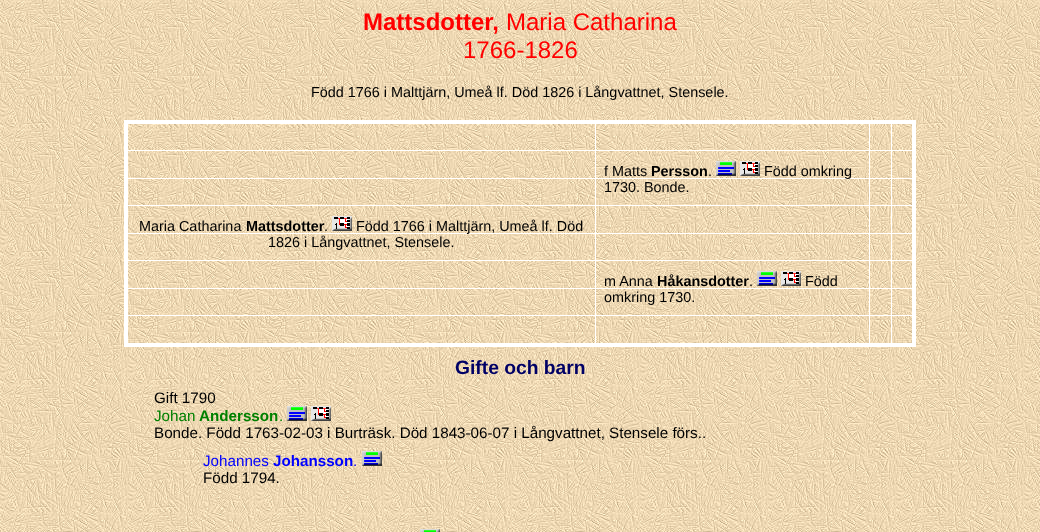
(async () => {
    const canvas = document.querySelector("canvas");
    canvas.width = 1040;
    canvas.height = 532;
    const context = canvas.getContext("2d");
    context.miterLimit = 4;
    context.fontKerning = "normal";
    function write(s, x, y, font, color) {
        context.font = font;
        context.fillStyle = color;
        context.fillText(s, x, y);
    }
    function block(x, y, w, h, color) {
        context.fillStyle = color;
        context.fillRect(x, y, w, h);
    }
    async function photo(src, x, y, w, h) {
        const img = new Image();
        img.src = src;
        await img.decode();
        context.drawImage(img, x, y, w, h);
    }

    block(0, 0, 1040, 532, "rgb(255, 255, 255)");
    await photo("media/1.png", 0, 0, 1040, 532);
    write("Mattsdotter,", 363, 30, "bold 24px Liberation Sans", "rgb(255, 0, 0)");
    write("Maria Catharina", 506, 30, "24px Liberation Sans", "rgb(255, 0, 0)");
    write("1766-1826", 463, 58, "24px Liberation Sans", "rgb(255, 0, 0)");
    write("Född 1766 i Malttjärn, Umeå lf. Död 1826 i Långvattnet, Stensele.", 311, 97, "14.4px Liberation Sans", "rgb(0, 0, 0)");
    block(126, 315, 789, 1, "rgb(255, 255, 255)");
    block(126, 288, 789, 1, "rgb(255, 255, 255)");
    block(126, 150, 789, 1, "rgb(255, 255, 255)");
    block(126, 178, 789, 1, "rgb(255, 255, 255)");
    block(126, 205, 789, 1, "rgb(255, 255, 255)");
    block(126, 260, 789, 1, "rgb(255, 255, 255)");
    block(126, 233, 789, 1, "rgb(255, 255, 255)");
    block(891, 122, 1, 223, "rgb(255, 255, 255)");
    block(869, 122, 1, 223, "rgb(255, 255, 255)");
    block(595, 122, 1, 223, "rgb(255, 255, 255)");
    block(124, 120, 792, 4, "rgb(255, 255, 255)");
    block(912, 120, 4, 227, "rgb(255, 255, 255)");
    block(124, 343, 792, 4, "rgb(255, 255, 255)");
    block(124, 120, 4, 227, "rgb(255, 255, 255)");
    write("f Matts", 604, 176, "14.4px Liberation Sans", "rgb(0, 0, 0)");
    write("Persson", 651, 176, "bold 14.4px Liberation Sans", "rgb(0, 0, 0)");
    write(".", 708, 176, "14.4px Liberation Sans", "rgb(0, 0, 0)");
    await photo("media/2.png", 716, 161, 20, 15);
    await photo("media/3.png", 740, 161, 20, 15);
    write("Född omkring", 764, 176, "14.4px Liberation Sans", "rgb(0, 0, 0)");
    write("1730. Bonde.", 604, 192, "14.4px Liberation Sans", "rgb(0, 0, 0)");
    write("Maria Catharina", 139, 231, "14.4px Liberation Sans", "rgb(0, 0, 0)");
    write("Mattsdotter", 246, 231, "bold 14.4px Liberation Sans", "rgb(0, 0, 0)");
    write(".", 324, 231, "14.4px Liberation Sans", "rgb(0, 0, 0)");
    await photo("media/3.png", 332, 216, 20, 15);
    write("Född 1766 i Malttjärn, Umeå lf. Död", 356, 231, "14.4px Liberation Sans", "rgb(0, 0, 0)");
    write("1826 i Långvattnet, Stensele.", 268, 247, "14.4px Liberation Sans", "rgb(0, 0, 0)");
    write("m Anna", 604, 286, "14.4px Liberation Sans", "rgb(0, 0, 0)");
    write("Håkansdotter", 657, 286, "bold 14.4px Liberation Sans", "rgb(0, 0, 0)");
    write(".", 749, 286, "14.4px Liberation Sans", "rgb(0, 0, 0)");
    await photo("media/2.png", 757, 271, 20, 15);
    await photo("media/3.png", 781, 271, 20, 15);
    write("Född", 805, 286, "14.4px Liberation Sans", "rgb(0, 0, 0)");
    write("omkring 1730.", 604, 302, "14.4px Liberation Sans", "rgb(0, 0, 0)");
    write("Gifte och barn", 455, 374, "bold 19.25px Liberation Sans", "rgb(0, 0, 102)");
    write("Gift 1790", 154, 403, "15.2px Liberation Sans", "rgb(0, 0, 0)");
    write("Johan", 154, 421, "15.2px Liberation Sans", "rgb(0, 128, 0)");
    write("Andersson", 199, 421, "bold 15.2px Liberation Sans", "rgb(0, 128, 0)");
    write(".", 279, 421, "15.2px Liberation Sans", "rgb(0, 128, 0)");
    await photo("media/2.png", 287, 406, 20, 15);
    await photo("media/3.png", 311, 406, 20, 15);
    write("Bonde. Född 1763-02-03 i Burträsk. Död 1843-06-07 i Långvattnet, Stensele förs..", 154, 438, "15.2px Liberation Sans", "rgb(0, 0, 0)");
    write("Johannes", 203, 466, "15.2px Liberation Sans", "rgb(0, 0, 255)");
    write("Johansson", 273, 466, "bold 15.2px Liberation Sans", "rgb(0, 0, 255)");
    write(".", 353, 466, "15.2px Liberation Sans", "rgb(0, 0, 255)");
    await photo("media/2.png", 362, 451, 20, 15);
    write("Född 1794.", 203, 483, "15.2px Liberation Sans", "rgb(0, 0, 0)");
    await photo("media/4.png", 420, 529, 20, 3);
})();
